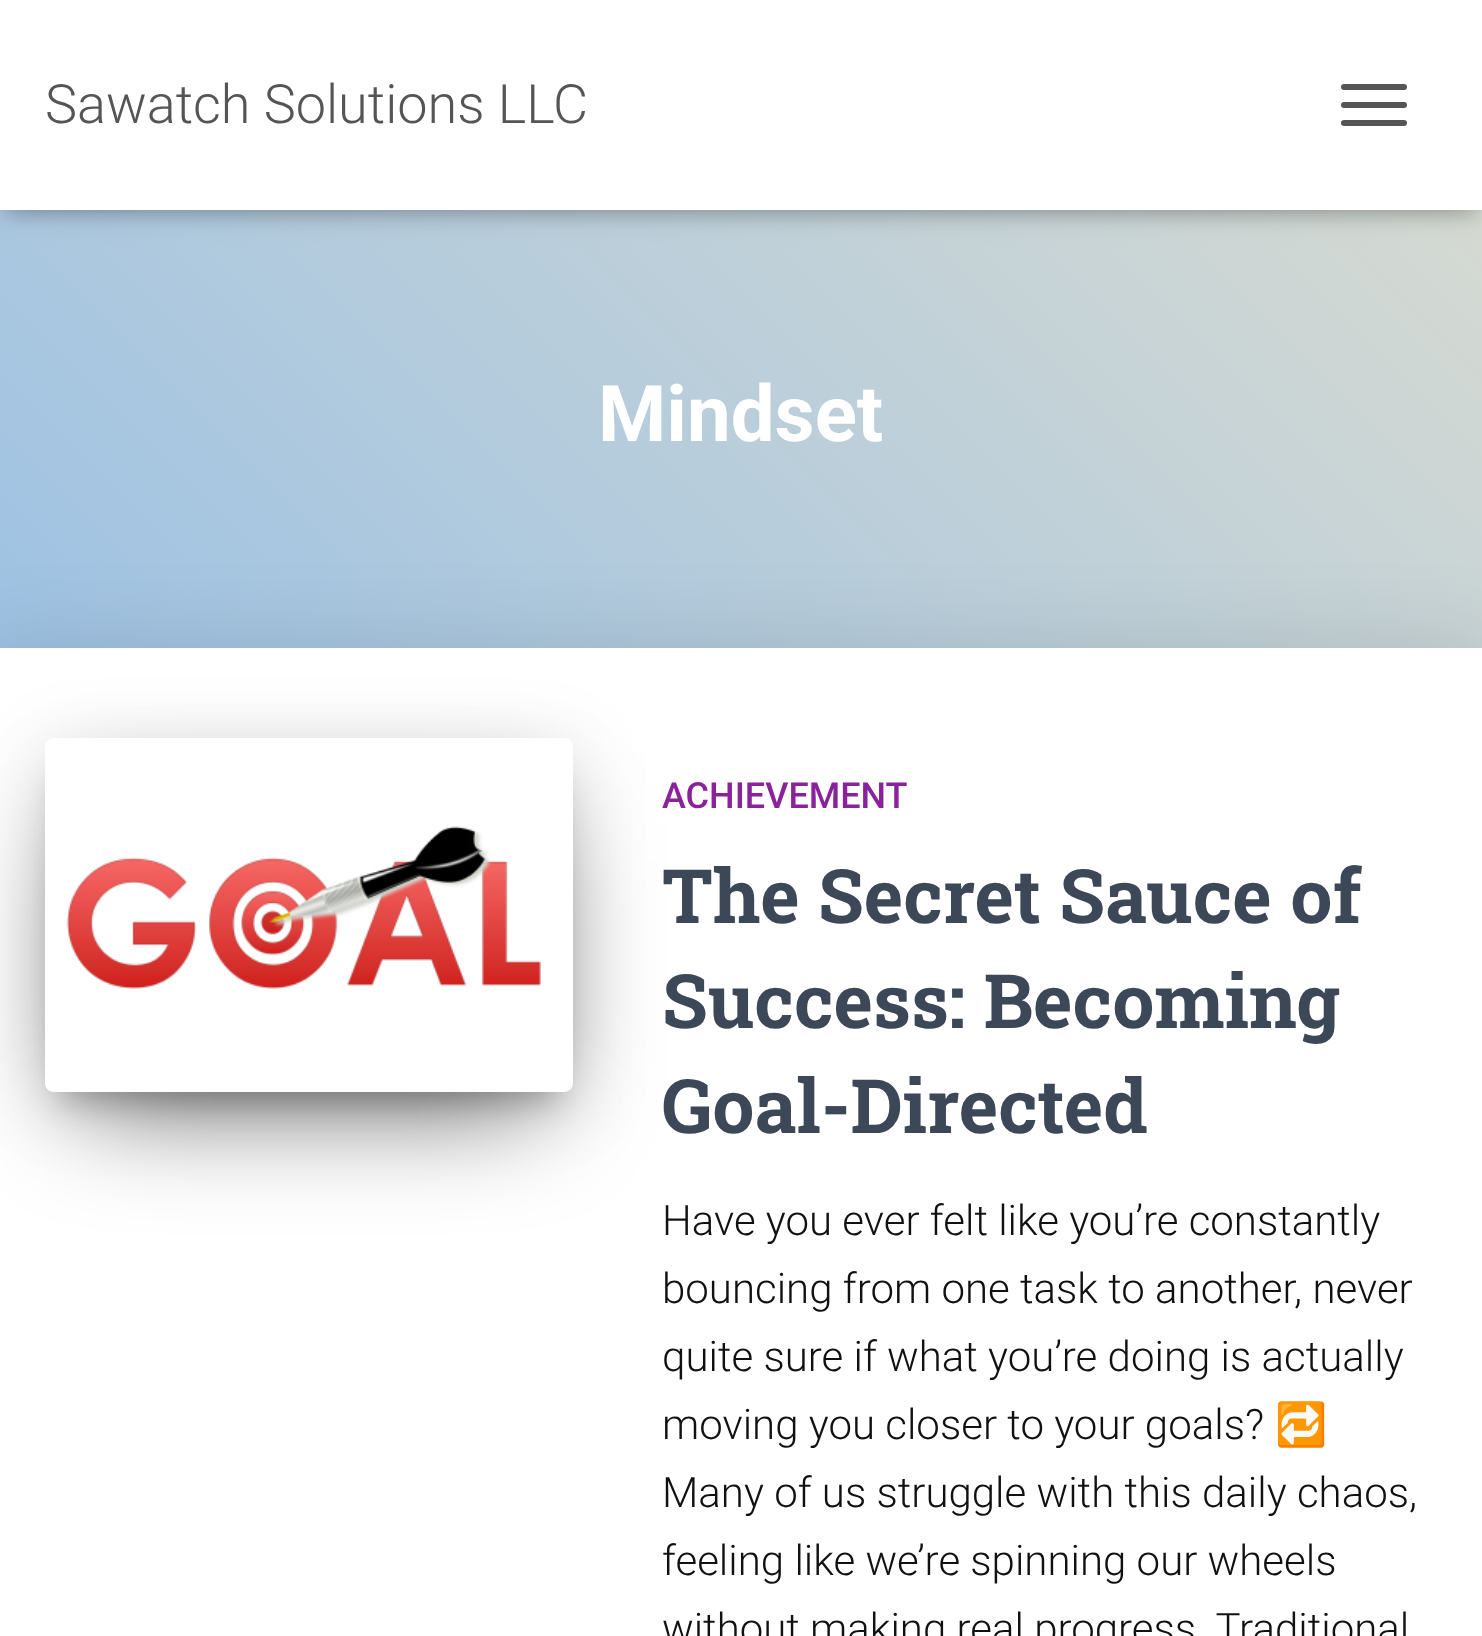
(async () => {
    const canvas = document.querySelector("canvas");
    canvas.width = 1482;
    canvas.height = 1636;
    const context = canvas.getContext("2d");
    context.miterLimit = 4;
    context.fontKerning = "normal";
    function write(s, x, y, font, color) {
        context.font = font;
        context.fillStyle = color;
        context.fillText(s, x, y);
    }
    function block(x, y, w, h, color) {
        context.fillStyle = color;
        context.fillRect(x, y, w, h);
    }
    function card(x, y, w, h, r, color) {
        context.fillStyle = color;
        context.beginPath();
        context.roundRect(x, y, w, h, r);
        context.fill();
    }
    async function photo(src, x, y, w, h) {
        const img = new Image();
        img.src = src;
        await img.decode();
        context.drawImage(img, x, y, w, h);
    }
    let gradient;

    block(0, 0, 1482, 1636, "rgb(255, 255, 255)");
    gradient = context.createLinearGradient(164, 992, 1319, -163);
    gradient.addColorStop(0, "rgb(153, 192, 229)");
    gradient.addColorStop(1, "rgb(219, 220, 208)");
    context.fillStyle = gradient;
    context.fillRect(0, 210, 1482, 438);
    context.fillStyle = "rgba(0, 0, 0, 0.1)";
    context.filter = "blur(7.5px)";
    context.beginPath();
    context.rect(6, 18, 1470, 198);
    context.fill();
    context.filter = "none";
    context.fillStyle = "rgba(0, 0, 0, 0.12)";
    context.filter = "blur(15px)";
    context.beginPath();
    context.rect(0, 3, 1482, 210);
    context.fill();
    context.filter = "none";
    context.fillStyle = "rgba(0, 0, 0, 0.42)";
    context.filter = "blur(15px)";
    context.beginPath();
    context.rect(18, 21, 1446, 174);
    context.fill();
    context.filter = "none";
    block(0, 0, 1482, 210, "rgb(255, 255, 255)");
    write("Sawatch Solutions LLC", 45, 123, "300 54px Roboto", "rgb(85, 85, 85)");
    card(1341, 84, 66, 6, 3, "rgb(85, 85, 85)");
    card(1341, 102, 66, 6, 3, "rgb(85, 85, 85)");
    card(1341, 120, 66, 6, 3, "rgb(85, 85, 85)");
    write("Mindset", 598, 441, "bold 78px Roboto", "rgb(255, 255, 255)");
    context.fillStyle = "rgba(0, 0, 0, 0.12)";
    context.filter = "blur(45px)";
    context.beginPath();
    context.rect(-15, 651, 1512, 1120);
    context.fill();
    context.filter = "none";
    block(0, 648, 1482, 988, "rgb(255, 255, 255)");
    context.save();
    context.beginPath();
    context.moveTo(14, 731);
    context.lineTo(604, 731);
    context.lineTo(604, 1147);
    context.lineTo(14, 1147);
    context.closePath();
    context.moveTo(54, 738);
    context.lineTo(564, 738);
    context.bezierCurveTo(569, 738, 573, 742, 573, 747);
    context.lineTo(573, 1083);
    context.bezierCurveTo(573, 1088, 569, 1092, 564, 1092);
    context.lineTo(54, 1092);
    context.bezierCurveTo(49, 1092, 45, 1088, 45, 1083);
    context.lineTo(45, 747);
    context.bezierCurveTo(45, 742, 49, 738, 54, 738);
    context.closePath();
    context.clip("evenodd");
    context.fillStyle = "rgba(0, 0, 0, 0.2)";
    context.filter = "blur(15px)";
    context.beginPath();
    context.rect(60, 777, 498, 324);
    context.fill();
    context.filter = "none";
    context.restore();
    context.save();
    context.beginPath();
    context.moveTo(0, 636);
    context.lineTo(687, 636);
    context.lineTo(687, 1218);
    context.lineTo(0, 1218);
    context.closePath();
    context.moveTo(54, 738);
    context.lineTo(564, 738);
    context.bezierCurveTo(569, 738, 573, 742, 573, 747);
    context.lineTo(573, 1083);
    context.bezierCurveTo(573, 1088, 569, 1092, 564, 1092);
    context.lineTo(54, 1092);
    context.bezierCurveTo(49, 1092, 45, 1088, 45, 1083);
    context.lineTo(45, 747);
    context.bezierCurveTo(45, 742, 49, 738, 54, 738);
    context.closePath();
    context.clip("evenodd");
    context.fillStyle = "rgba(0, 0, 0, 0.12)";
    context.filter = "blur(37.5px)";
    context.beginPath();
    context.roundRect(45, 750, 528, 354, 9);
    context.fill();
    context.filter = "none";
    context.restore();
    context.save();
    context.beginPath();
    context.moveTo(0, 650);
    context.lineTo(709, 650);
    context.lineTo(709, 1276);
    context.lineTo(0, 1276);
    context.closePath();
    context.moveTo(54, 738);
    context.lineTo(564, 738);
    context.bezierCurveTo(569, 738, 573, 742, 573, 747);
    context.lineTo(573, 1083);
    context.bezierCurveTo(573, 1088, 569, 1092, 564, 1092);
    context.lineTo(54, 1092);
    context.bezierCurveTo(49, 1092, 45, 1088, 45, 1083);
    context.lineTo(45, 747);
    context.bezierCurveTo(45, 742, 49, 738, 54, 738);
    context.closePath();
    context.clip("evenodd");
    context.fillStyle = "rgba(0, 0, 0, 0.56)";
    context.filter = "blur(57px)";
    context.beginPath();
    context.rect(81, 822, 456, 282);
    context.fill();
    context.filter = "none";
    context.restore();
    await photo("media/1.png", 45, 826, 528, 260);
    write("ACHIEVEMENT", 662, 808, "500 36px Roboto", "rgb(137, 34, 155)");
    write("The Secret Sauce of", 662, 923, "bold 75px Roboto Slab", "rgb(60, 72, 88)");
    write("Success: Becoming", 662, 1028, "bold 75px Roboto Slab", "rgb(60, 72, 88)");
    write("Goal-Directed", 662, 1133, "bold 75px Roboto Slab", "rgb(60, 72, 88)");
    write("Have you ever felt like you’re constantly", 662, 1235, "300 42px Roboto", "rgb(17, 17, 17)");
    write("bouncing from one task to another, never", 662, 1303, "300 42px Roboto", "rgb(17, 17, 17)");
    write("quite sure if what you’re doing is actually", 662, 1371, "300 42px Roboto", "rgb(17, 17, 17)");
    write("moving you closer to your goals?", 662, 1439, "300 42px Roboto", "rgb(17, 17, 17)");
    write("🔁", 1275, 1439, "42px Noto Color Emoji", "rgb(17, 17, 17)");
    write("Many of us struggle with this daily chaos,", 662, 1507, "300 42px Roboto", "rgb(17, 17, 17)");
    write("feeling like we’re spinning our wheels", 662, 1575, "300 42px Roboto", "rgb(17, 17, 17)");
    write("without making real progress. Traditional", 662, 1643, "300 42px Roboto", "rgb(17, 17, 17)");
})();
